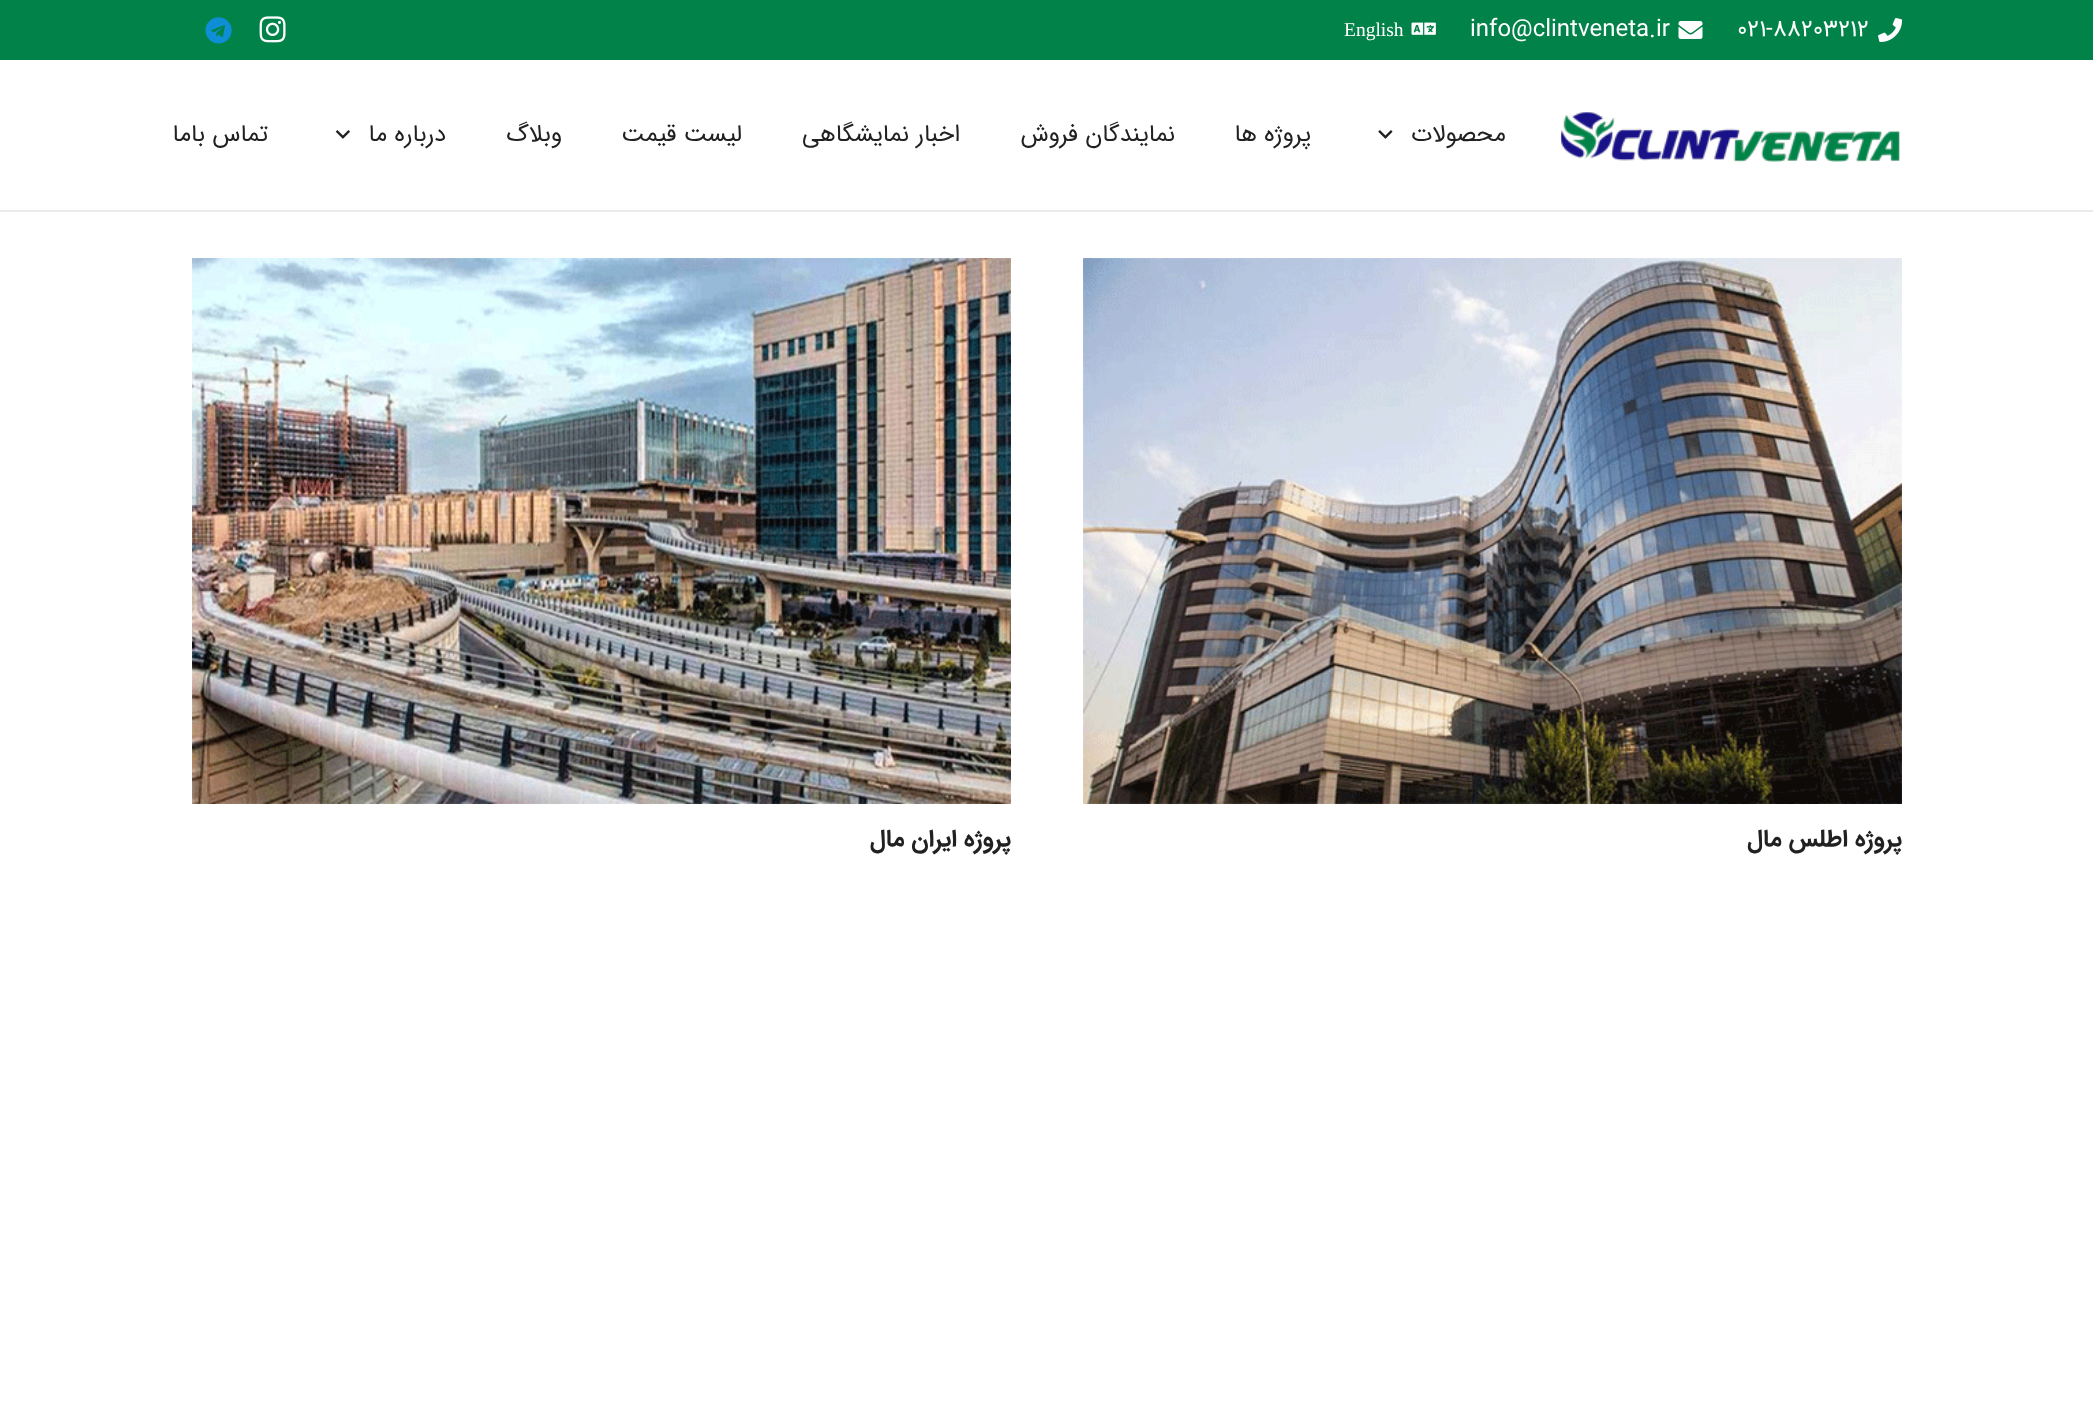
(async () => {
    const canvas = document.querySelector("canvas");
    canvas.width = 2093;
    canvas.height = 1410;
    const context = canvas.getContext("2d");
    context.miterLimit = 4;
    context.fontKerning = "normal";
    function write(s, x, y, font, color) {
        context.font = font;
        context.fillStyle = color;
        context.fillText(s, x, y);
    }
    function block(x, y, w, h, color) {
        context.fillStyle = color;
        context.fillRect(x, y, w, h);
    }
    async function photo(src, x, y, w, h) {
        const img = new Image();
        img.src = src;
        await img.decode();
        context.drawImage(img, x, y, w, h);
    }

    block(0, 0, 2093, 1410, "rgb(255, 255, 255)");
    block(0, 0, 2093, 60, "rgb(0, 130, 72)");
    await photo("media/1.png", 1878, 18, 25, 24);
    write("۰۲۱-۸۸۲۰۳۲۱۲", 1737, 36, "24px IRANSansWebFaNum", "rgb(255, 255, 255)");
    await photo("media/2.png", 1678, 21, 25, 18);
    write("info@clintveneta.ir", 1470, 36, "24px IRANSansWebFaNum", "rgb(255, 255, 255)");
    await photo("media/3.png", 1411, 22, 25, 13);
    write("English", 1344, 36, "19.5px Liberation Serif", "rgb(255, 255, 255)");
    await photo("media/4.png", 259, 16, 27, 27);
    await photo("media/5.png", 205, 17, 27, 27);
    block(0, 210, 2093, 2, "rgb(235, 235, 235)");
    await photo("media/6.png", 1560, 112, 340, 50);
    context.direction = "rtl";
    write("محصولات", 1506, 141, "24px IRANSansWebFaNum", "rgb(33, 33, 33)");
    await photo("media/7.png", 1378, 130, 15, 9);
    write("پروژه ها", 1311, 141, "24px IRANSansWebFaNum", "rgb(33, 33, 33)");
    write("نمایندگان فروش", 1175, 141, "24px IRANSansWebFaNum", "rgb(33, 33, 33)");
    write("اخبار نمایشگاهی", 960, 141, "24px IRANSansWebFaNum", "rgb(33, 33, 33)");
    write("لیست قیمت", 742, 141, "24px IRANSansWebFaNum", "rgb(33, 33, 33)");
    write("وبلاگ", 562, 141, "24px IRANSansWebFaNum", "rgb(33, 33, 33)");
    write("درباره ما", 446, 141, "24px IRANSansWebFaNum", "rgb(33, 33, 33)");
    await photo("media/8.png", 335, 130, 15, 9);
    write("تماس باما", 268, 141, "24px IRANSansWebFaNum", "rgb(33, 33, 33)");
    await photo("media/9.png", 1083, 258, 819, 546);
    write("پروژه اطلس مال", 1902, 846, "bold 24px IRANSansWebFaNum", "rgb(33, 33, 33)");
    await photo("media/10.png", 192, 258, 819, 546);
    write("پروژه ایران مال", 1011, 846, "bold 24px IRANSansWebFaNum", "rgb(33, 33, 33)");
})();
